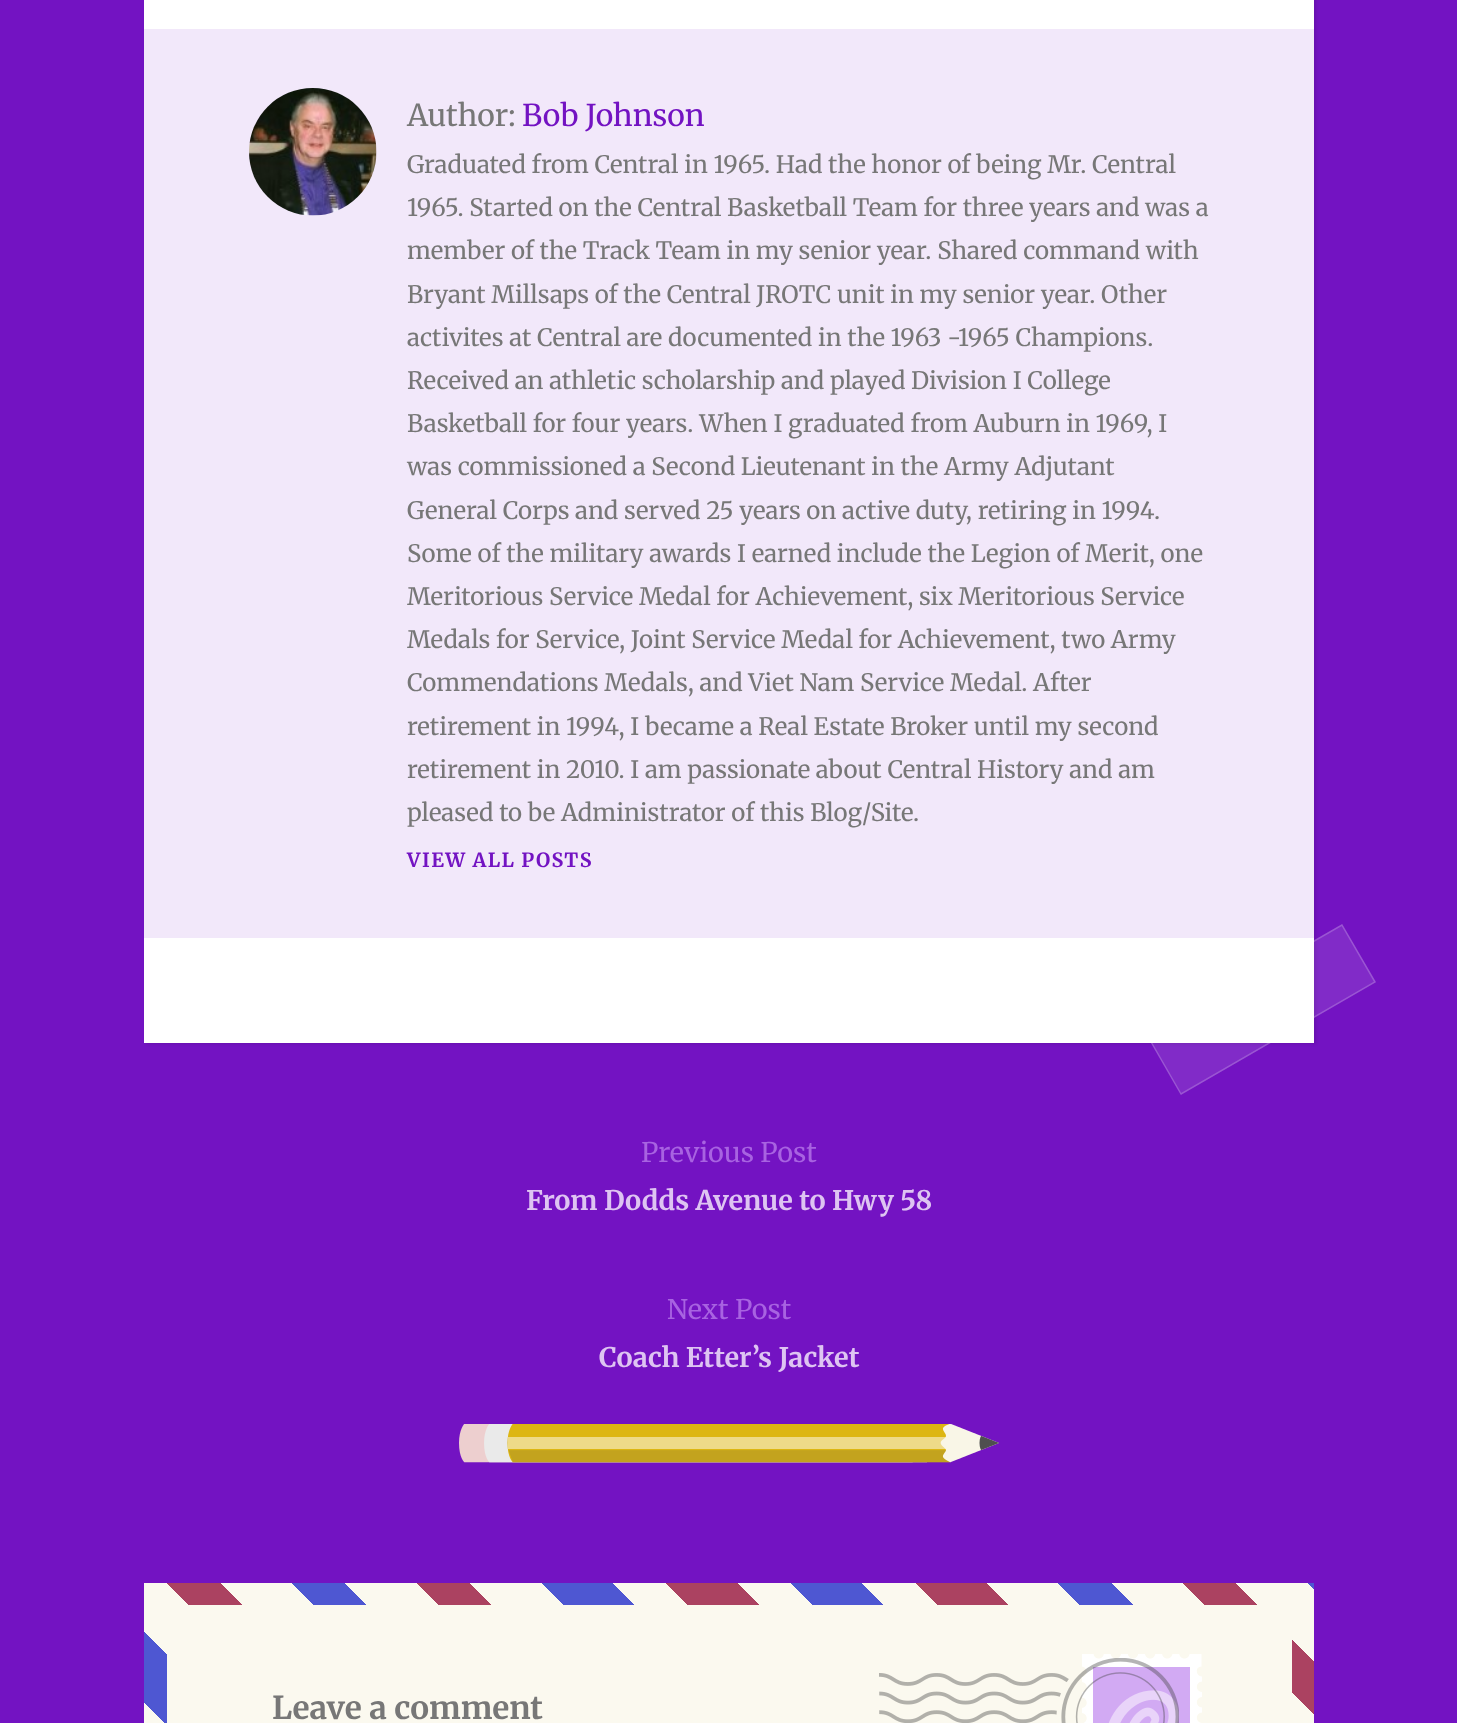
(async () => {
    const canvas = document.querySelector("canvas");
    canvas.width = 1457;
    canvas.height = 1723;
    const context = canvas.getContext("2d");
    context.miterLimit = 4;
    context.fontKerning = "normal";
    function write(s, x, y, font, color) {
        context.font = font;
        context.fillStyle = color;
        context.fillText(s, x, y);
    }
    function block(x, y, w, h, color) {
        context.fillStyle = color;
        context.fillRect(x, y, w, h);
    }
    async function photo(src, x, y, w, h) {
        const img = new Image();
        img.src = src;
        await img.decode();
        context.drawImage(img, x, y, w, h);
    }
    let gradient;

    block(0, 0, 1457, 1723, "rgb(115, 19, 194)");
    context.fillStyle = "rgba(0, 0, 0, 0.1)";
    context.filter = "blur(1.5px)";
    context.beginPath();
    context.rect(146, -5, 1170, 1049);
    context.fill();
    context.filter = "none";
    block(144, 0, 1170, 1043, "rgb(255, 255, 255)");
    block(144, 29, 1170, 909, "rgb(242, 232, 250)");
    await photo("media/1.png", 249, 88, 128, 128);
    write("Author:", 407, 126, "30px Merriweather", "rgb(119, 119, 119)");
    write("Bob Johnson", 522, 126, "30px Merriweather", "rgb(115, 19, 194)");
    write("Graduated from Central in 1965. Had the honor of being Mr. Central", 407, 173, "24px Merriweather", "rgb(119, 119, 119)");
    write("1965. Started on the Central Basketball Team for three years and was a", 407, 216, "24px Merriweather", "rgb(119, 119, 119)");
    write("member of the Track Team in my senior year. Shared command with", 407, 259, "24px Merriweather", "rgb(119, 119, 119)");
    write("Bryant Millsaps of the Central JROTC unit in my senior year. Other", 407, 303, "24px Merriweather", "rgb(119, 119, 119)");
    write("activites at Central are documented in the 1963 -1965 Champions.", 407, 346, "24px Merriweather", "rgb(119, 119, 119)");
    write("Received an athletic scholarship and played Division I College", 407, 389, "24px Merriweather", "rgb(119, 119, 119)");
    write("Basketball for four years. When I graduated from Auburn in 1969, I", 407, 432, "24px Merriweather", "rgb(119, 119, 119)");
    write("was commissioned a Second Lieutenant in the Army Adjutant", 407, 475, "24px Merriweather", "rgb(119, 119, 119)");
    write("General Corps and served 25 years on active duty, retiring in 1994.", 407, 519, "24px Merriweather", "rgb(119, 119, 119)");
    write("Some of the military awards I earned include the Legion of Merit, one", 407, 562, "24px Merriweather", "rgb(119, 119, 119)");
    write("Meritorious Service Medal for Achievement, six Meritorious Service", 407, 605, "24px Merriweather", "rgb(119, 119, 119)");
    write("Medals for Service, Joint Service Medal for Achievement, two Army", 407, 648, "24px Merriweather", "rgb(119, 119, 119)");
    write("Commendations Medals, and Viet Nam Service Medal. After", 407, 691, "24px Merriweather", "rgb(119, 119, 119)");
    write("retirement in 1994, I became a Real Estate Broker until my second", 407, 735, "24px Merriweather", "rgb(119, 119, 119)");
    write("retirement in 2010. I am passionate about Central History and am", 407, 778, "24px Merriweather", "rgb(119, 119, 119)");
    write("pleased to be Administrator of this Blog/Site.", 407, 821, "24px Merriweather", "rgb(119, 119, 119)");
    context.letterSpacing = "1.4px";
    write("VIEW ALL POSTS", 407, 867, "bold 19.5px Merriweather", "rgb(115, 19, 194)");
    context.fillStyle = "rgba(255, 255, 255, 0.1)";
    context.beginPath();
    context.moveTo(1147, 1036);
    context.lineTo(1342, 924);
    context.lineTo(1376, 982);
    context.lineTo(1181, 1095);
    context.closePath();
    context.fill();
    context.beginPath();
    context.moveTo(1148, 1036.5);
    context.lineTo(1342, 925);
    context.lineTo(1375, 982);
    context.lineTo(1181, 1094);
    context.closePath();
    context.strokeStyle = "rgba(255, 255, 255, 0.2)";
    context.lineWidth = 1.5;
    context.stroke();
    context.letterSpacing = "0px";
    write("Previous Post", 641, 1162, "27px Merriweather", "rgb(168, 99, 225)");
    write("From Dodds Avenue to Hwy 58", 526, 1210, "bold 27px Merriweather", "rgb(222, 196, 242)");
    write("Next Post", 667, 1319, "27px Merriweather", "rgb(168, 99, 225)");
    write("Coach Etter’s Jacket", 599, 1367, "bold 27px Merriweather", "rgb(222, 196, 242)");
    await photo("media/2.png", 459, 1424, 540, 39);
    gradient = context.createLinearGradient(313, 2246, 1204, 1355);
    gradient.addColorStop(0, "rgb(171, 66, 97)");
    gradient.addColorStop(0.04, "rgb(171, 66, 97)");
    gradient.addColorStop(0.04, "rgb(251, 249, 239)");
    gradient.addColorStop(0.07, "rgb(251, 249, 239)");
    gradient.addColorStop(0.07, "rgb(78, 87, 210)");
    gradient.addColorStop(0.11, "rgb(78, 87, 210)");
    gradient.addColorStop(0.11, "rgb(251, 249, 239)");
    gradient.addColorStop(0.14, "rgb(251, 249, 239)");
    gradient.addColorStop(0.14, "rgb(171, 66, 97)");
    gradient.addColorStop(0.18, "rgb(171, 66, 97)");
    gradient.addColorStop(0.18, "rgb(251, 249, 239)");
    gradient.addColorStop(0.21, "rgb(251, 249, 239)");
    gradient.addColorStop(0.21, "rgb(78, 87, 210)");
    gradient.addColorStop(0.25, "rgb(78, 87, 210)");
    gradient.addColorStop(0.25, "rgb(251, 249, 239)");
    gradient.addColorStop(0.29, "rgb(251, 249, 239)");
    gradient.addColorStop(0.29, "rgb(171, 66, 97)");
    gradient.addColorStop(0.32, "rgb(171, 66, 97)");
    gradient.addColorStop(0.32, "rgb(251, 249, 239)");
    gradient.addColorStop(0.36, "rgb(251, 249, 239)");
    gradient.addColorStop(0.36, "rgb(78, 87, 210)");
    gradient.addColorStop(0.39, "rgb(78, 87, 210)");
    gradient.addColorStop(0.39, "rgb(251, 249, 239)");
    gradient.addColorStop(0.43, "rgb(251, 249, 239)");
    gradient.addColorStop(0.43, "rgb(171, 66, 97)");
    gradient.addColorStop(0.46, "rgb(171, 66, 97)");
    gradient.addColorStop(0.46, "rgb(251, 249, 239)");
    gradient.addColorStop(0.5, "rgb(251, 249, 239)");
    gradient.addColorStop(0.5, "rgb(78, 87, 210)");
    gradient.addColorStop(0.54, "rgb(78, 87, 210)");
    gradient.addColorStop(0.54, "rgb(251, 249, 239)");
    gradient.addColorStop(0.57, "rgb(251, 249, 239)");
    gradient.addColorStop(0.57, "rgb(171, 66, 97)");
    gradient.addColorStop(0.61, "rgb(171, 66, 97)");
    gradient.addColorStop(0.61, "rgb(251, 249, 239)");
    gradient.addColorStop(0.64, "rgb(251, 249, 239)");
    gradient.addColorStop(0.64, "rgb(78, 87, 210)");
    gradient.addColorStop(0.68, "rgb(78, 87, 210)");
    gradient.addColorStop(0.68, "rgb(251, 249, 239)");
    gradient.addColorStop(0.71, "rgb(251, 249, 239)");
    gradient.addColorStop(0.71, "rgb(171, 66, 97)");
    gradient.addColorStop(0.75, "rgb(171, 66, 97)");
    gradient.addColorStop(0.75, "rgb(251, 249, 239)");
    gradient.addColorStop(0.79, "rgb(251, 249, 239)");
    gradient.addColorStop(0.79, "rgb(78, 87, 210)");
    gradient.addColorStop(0.82, "rgb(78, 87, 210)");
    gradient.addColorStop(0.82, "rgb(251, 249, 239)");
    gradient.addColorStop(0.86, "rgb(251, 249, 239)");
    gradient.addColorStop(0.86, "rgb(171, 66, 97)");
    gradient.addColorStop(0.89, "rgb(171, 66, 97)");
    gradient.addColorStop(0.89, "rgb(251, 249, 239)");
    gradient.addColorStop(0.93, "rgb(251, 249, 239)");
    gradient.addColorStop(0.93, "rgb(78, 87, 210)");
    gradient.addColorStop(0.96, "rgb(78, 87, 210)");
    gradient.addColorStop(0.96, "rgb(251, 249, 239)");
    gradient.addColorStop(1, "rgb(251, 249, 239)");
    context.fillStyle = gradient;
    context.fillRect(144, 1583, 1170, 140);
    block(167, 1605, 1125, 118, "rgb(251, 249, 239)");
    await photo("media/3.png", 1082, 1654, 120, 69);
    write("Leave a comment", 272, 1719, "bold 31.5px Merriweather", "rgb(119, 119, 119)");
    await photo("media/4.png", 879, 1658, 300, 65);
})();
